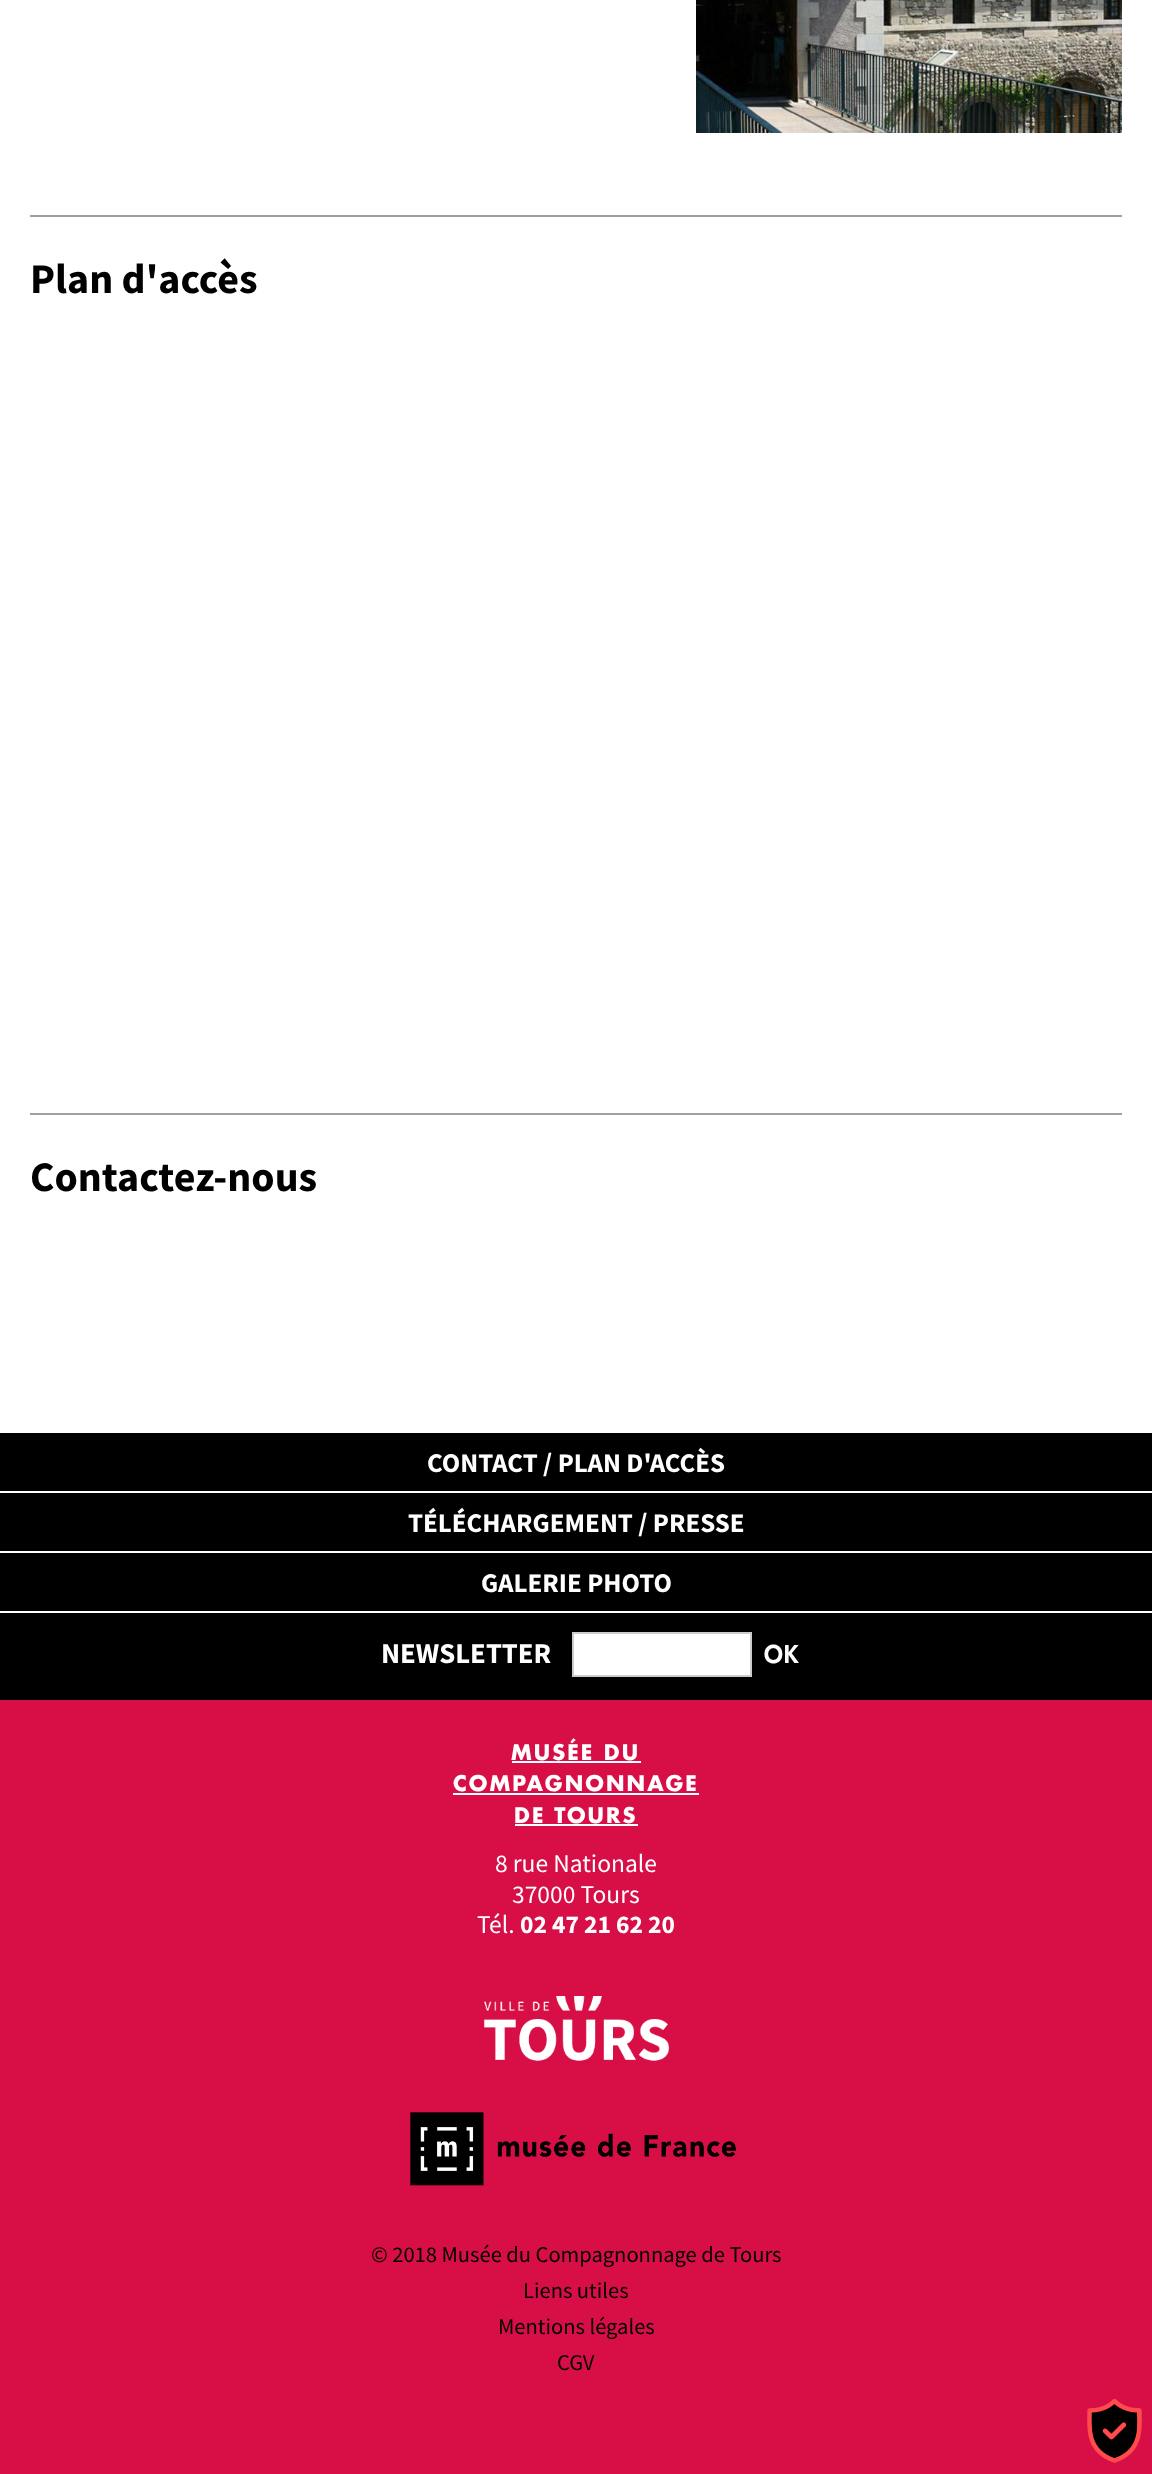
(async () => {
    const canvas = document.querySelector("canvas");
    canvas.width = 1152;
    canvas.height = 2474;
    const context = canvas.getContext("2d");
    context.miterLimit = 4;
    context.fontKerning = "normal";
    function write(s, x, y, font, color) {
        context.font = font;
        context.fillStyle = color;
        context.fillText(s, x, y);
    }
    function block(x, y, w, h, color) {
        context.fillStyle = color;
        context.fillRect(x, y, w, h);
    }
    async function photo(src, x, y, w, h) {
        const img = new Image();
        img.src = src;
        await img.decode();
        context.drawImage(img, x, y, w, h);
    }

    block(0, 0, 1152, 2474, "rgb(255, 255, 255)");
    await photo("media/1.png", 696, 0, 426, 133);
    block(30, 215, 1092, 2, "rgb(160, 160, 160)");
    write("Plan d'accès", 30, 293, "bold 42px Source Sans Pro", "rgb(0, 0, 0)");
    block(30, 1113, 1092, 2, "rgb(160, 160, 160)");
    write("Contactez-nous", 30, 1191, "bold 42px Source Sans Pro", "rgb(0, 0, 0)");
    block(0, 1433, 1152, 267, "rgb(0, 0, 0)");
    block(0, 1491, 1152, 2, "rgb(255, 255, 255)");
    write("CONTACT / PLAN D'ACCÈS", 427, 1472, "bold 27px Source Sans Pro", "rgb(255, 255, 255)");
    block(0, 1551, 1152, 2, "rgb(255, 255, 255)");
    write("TÉLÉCHARGEMENT / PRESSE", 408, 1532, "bold 27px Source Sans Pro", "rgb(255, 255, 255)");
    block(0, 1611, 1152, 2, "rgb(255, 255, 255)");
    write("GALERIE PHOTO", 481, 1592, "bold 27px Source Sans Pro", "rgb(255, 255, 255)");
    write("NEWSLETTER", 381, 1663, "bold 28.75px Source Sans Pro", "rgb(255, 255, 255)");
    context.beginPath();
    context.rect(573, 1633, 178, 43);
    context.fill();
    context.strokeStyle = "rgb(204, 204, 204)";
    context.lineWidth = 2;
    context.stroke();
    context.letterSpacing = "1px";
    write("OK", 764, 1663, "900 24px Futura", "rgb(255, 255, 255)");
    block(0, 1700, 1152, 774, "rgb(216, 15, 70)");
    context.letterSpacing = "2.1px";
    write("MUSÉE DU", 511, 1760, "bold 21px Futura", "rgb(255, 255, 255)");
    block(512, 1761, 129, 2, "rgb(255, 255, 255)");
    write("COMPAGNONNAGE", 453, 1791, "bold 21px Futura", "rgb(255, 255, 255)");
    block(453, 1793, 246, 2, "rgb(255, 255, 255)");
    write("DE TOURS", 514, 1823, "bold 21px Futura", "rgb(255, 255, 255)");
    block(515, 1824, 123, 2, "rgb(255, 255, 255)");
    context.letterSpacing = "0px";
    write("8 rue Nationale", 495, 1872, "25.5px Source Sans Pro", "rgb(255, 255, 255)");
    write("37000 Tours", 512, 1903, "25.5px Source Sans Pro", "rgb(255, 255, 255)");
    write("Tél.", 477, 1933, "25.5px Source Sans Pro", "rgb(255, 255, 255)");
    write("02 47 21 62 20", 520, 1933, "bold 25.5px Source Sans Pro", "rgb(255, 255, 255)");
    await photo("media/2.png", 484, 1996, 185, 65);
    await photo("media/3.png", 410, 2112, 326, 74);
    write("© 2018 Musée du Compagnonnage de Tours", 371, 2262, "22.5px Source Sans Pro", "rgb(0, 0, 0)");
    write("Liens utiles", 523, 2298, "22.5px Source Sans Pro", "rgb(0, 0, 0)");
    write("Mentions légales", 498, 2334, "22.5px Source Sans Pro", "rgb(0, 0, 0)");
    write("CGV", 557, 2370, "22.5px Source Sans Pro", "rgb(0, 0, 0)");
    await photo("media/4.png", 1087, 2398, 55, 65);
})();
